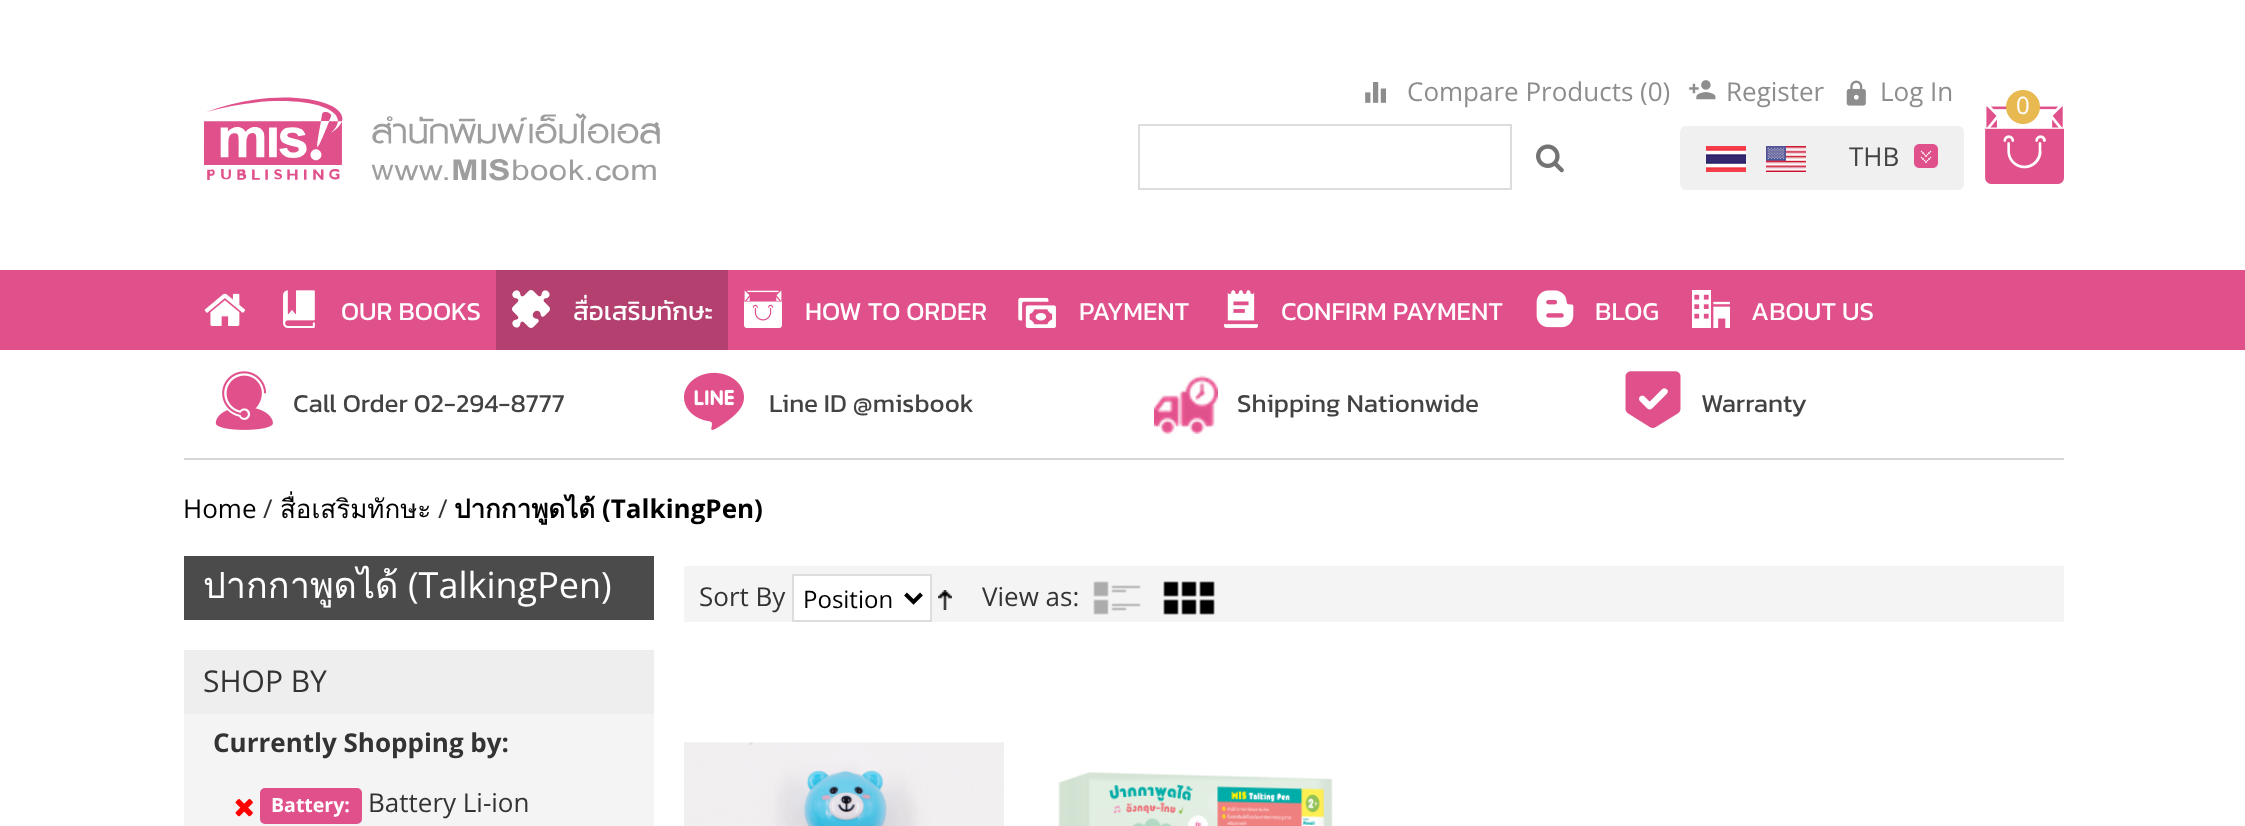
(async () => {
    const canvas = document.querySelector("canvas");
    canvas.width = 2245;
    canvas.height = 826;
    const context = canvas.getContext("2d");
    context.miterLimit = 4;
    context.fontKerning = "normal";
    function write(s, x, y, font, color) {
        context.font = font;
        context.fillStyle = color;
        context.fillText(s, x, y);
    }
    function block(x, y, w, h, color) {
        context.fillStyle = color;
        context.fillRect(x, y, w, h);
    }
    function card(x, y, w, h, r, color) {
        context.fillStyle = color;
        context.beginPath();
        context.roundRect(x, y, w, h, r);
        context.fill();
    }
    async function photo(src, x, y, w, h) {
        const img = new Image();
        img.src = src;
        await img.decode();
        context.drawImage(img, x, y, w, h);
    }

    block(0, 0, 2245, 826, "rgb(255, 255, 255)");
    await photo("media/1.png", 203, 97, 457, 84);
    await photo("media/2.png", 1365, 82, 21, 21);
    write("Compare Products (0)", 1407, 101, "26px Open Sans", "rgb(141, 141, 141)");
    await photo("media/3.png", 1689, 80, 27, 20);
    write("Register", 1726, 101, "26px Open Sans", "rgb(141, 141, 141)");
    await photo("media/4.png", 1846, 80, 20, 26);
    write("Log In", 1880, 101, "26px Open Sans", "rgb(141, 141, 141)");
    card(1680, 126, 284, 64, 6, "rgb(240, 240, 240)");
    await photo("media/5.png", 1706, 146, 40, 26);
    await photo("media/6.png", 1766, 146, 40, 26);
    await photo("media/7.png", 1914, 144, 24, 24);
    write("THB", 1849, 166, "26px Open Sans", "rgb(67, 67, 67)");
    await photo("media/8.png", 1985, 106, 79, 78);
    context.fillStyle = "rgb(232, 184, 81)";
    context.beginPath();
    context.arc(2023, 107, 17, 0, Math.PI * 2);
    context.fill();
    write("0", 2016, 114, "24px Open Sans", "rgb(255, 255, 255)");
    block(0, 270, 2245, 80, "rgb(224, 80, 139)");
    context.strokeStyle = "rgb(221, 221, 221)";
    context.lineWidth = 2;
    context.strokeRect(1139, 125, 372, 64);
    await photo("media/9.png", 1536, 144, 28, 29);
    await photo("media/10.png", 204, 293, 42, 33);
    await photo("media/11.png", 283, 290, 32, 38);
    write("OUR BOOKS", 341, 320, "26px Kanit", "rgb(255, 255, 255)");
    block(496, 270, 232, 80, "rgb(179, 64, 111)");
    await photo("media/12.png", 512, 290, 38, 38);
    write("สื่อเสริมทักษะ", 573, 320, "26px Kanit", "rgb(255, 255, 255)");
    await photo("media/13.png", 744, 290, 38, 38);
    write("HOW TO ORDER", 805, 320, "26px Kanit", "rgb(255, 255, 255)");
    await photo("media/14.png", 1018, 297, 38, 31);
    write("PAYMENT", 1079, 320, "26px Kanit", "rgb(255, 255, 255)");
    await photo("media/15.png", 1224, 290, 34, 38);
    write("CONFIRM PAYMENT", 1281, 320, "26px Kanit", "rgb(255, 255, 255)");
    await photo("media/16.png", 1536, 290, 38, 38);
    write("BLOG", 1595, 320, "26px Kanit", "rgb(255, 255, 255)");
    await photo("media/17.png", 1692, 290, 38, 38);
    write("ABOUT US", 1751, 320, "26px Kanit", "rgb(255, 255, 255)");
    block(184, 458, 1880, 2, "rgb(213, 213, 213)");
    await photo("media/18.png", 215, 371, 58, 59);
    write("Call Order 02-294-8777", 293, 412, "26px Kanit", "rgb(67, 67, 67)");
    await photo("media/19.png", 684, 372, 60, 58);
    write("Line ID @misbook", 769, 412, "26px Kanit", "rgb(67, 67, 67)");
    await photo("media/20.png", 1154, 375, 64, 59);
    write("Shipping Nationwide", 1237, 412, "26px Kanit", "rgb(67, 67, 67)");
    await photo("media/21.png", 1625, 371, 56, 57);
    write("Warranty", 1701, 412, "26px Kanit", "rgb(67, 67, 67)");
    write("Home", 183, 518, "26px Open Sans", "rgb(0, 0, 0)");
    write("/", 263, 518, "26px Open Sans", "rgb(51, 51, 51)");
    write("สื่อเสริมทักษะ", 280, 518, "26px Loma", "rgb(0, 0, 0)");
    write("ปากกาพูดได้", 454, 518, "bold 26px Loma", "rgb(0, 0, 0)");
    write("(TalkingPen)", 602, 518, "bold 26px Open Sans", "rgb(0, 0, 0)");
    write("/", 438, 518, "26px Open Sans", "rgb(51, 51, 51)");
    block(184, 556, 470, 64, "rgb(75, 75, 75)");
    write("ปากกาพูดได้", 203, 598, "36px Loma", "rgb(255, 255, 255)");
    write("(TalkingPen)", 408, 598, "36px Open Sans", "rgb(255, 255, 255)");
    block(184, 650, 470, 64, "rgb(238, 238, 238)");
    write("SHOP BY", 203, 692, "30px Open Sans", "rgb(51, 51, 51)");
    block(184, 714, 470, 112, "rgb(244, 244, 244)");
    write("Currently Shopping by:", 213, 752, "bold 26px Open Sans", "rgb(51, 51, 51)");
    await photo("media/22.png", 235, 799, 18, 18);
    card(260, 788, 102, 36, 5, "rgb(224, 80, 139)");
    write("Battery:", 271, 812, "bold 19.5px Open Sans", "rgb(255, 255, 255)");
    write("Battery Li-ion", 368, 812, "26px Open Sans", "rgb(51, 51, 51)");
    block(684, 566, 1380, 56, "rgb(244, 244, 244)");
    write("Sort By", 699, 606, "26px Open Sans", "rgb(51, 51, 51)");
    context.fillStyle = "rgb(255, 255, 255)";
    context.beginPath();
    context.rect(793, 575, 138, 46);
    context.fill();
    context.stroke();
    context.beginPath();
    context.moveTo(905.5, 594);
    context.lineTo(913.5, 602);
    context.lineTo(921.5, 594);
    context.strokeStyle = "rgb(0, 0, 0)";
    context.lineWidth = 4;
    context.stroke();
    write("Position", 803, 608, "24px Open Sans", "rgb(0, 0, 0)");
    await photo("media/23.png", 938, 590, 14, 20);
    write("View as:", 982, 606, "26px Open Sans", "rgb(51, 51, 51)");
    await photo("media/24.png", 1093, 581, 48, 34);
    await photo("media/25.png", 1163, 581, 52, 34);
    await photo("media/26.png", 684, 742, 320, 84);
    await photo("media/27.png", 1058, 772, 275, 54);
})();
